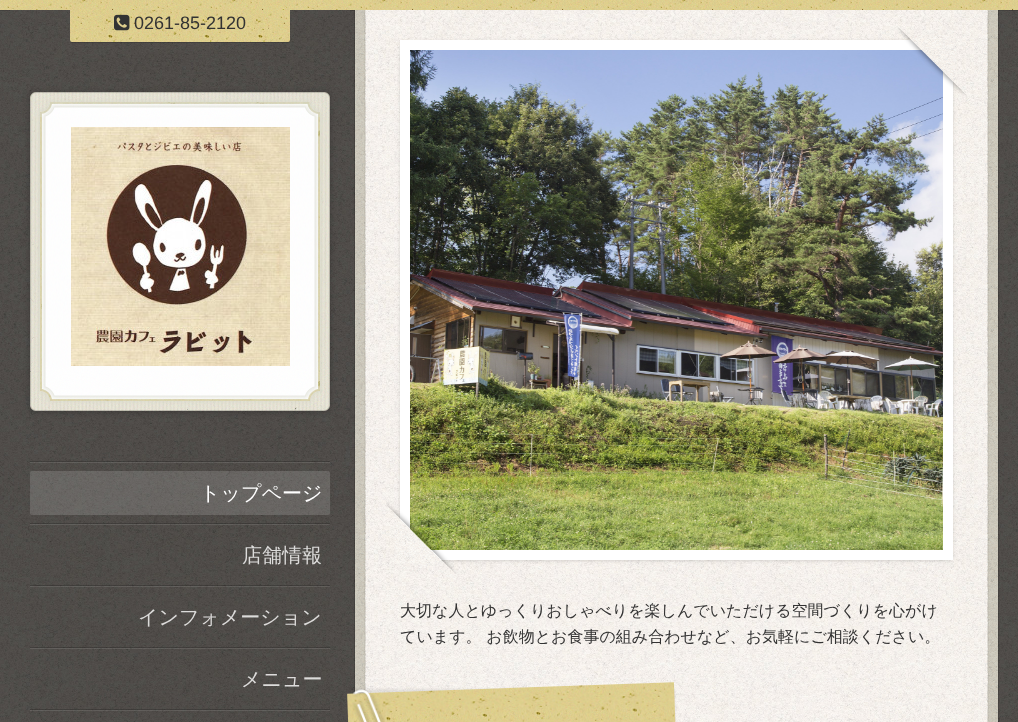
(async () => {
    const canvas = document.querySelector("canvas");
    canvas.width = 1018;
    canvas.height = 722;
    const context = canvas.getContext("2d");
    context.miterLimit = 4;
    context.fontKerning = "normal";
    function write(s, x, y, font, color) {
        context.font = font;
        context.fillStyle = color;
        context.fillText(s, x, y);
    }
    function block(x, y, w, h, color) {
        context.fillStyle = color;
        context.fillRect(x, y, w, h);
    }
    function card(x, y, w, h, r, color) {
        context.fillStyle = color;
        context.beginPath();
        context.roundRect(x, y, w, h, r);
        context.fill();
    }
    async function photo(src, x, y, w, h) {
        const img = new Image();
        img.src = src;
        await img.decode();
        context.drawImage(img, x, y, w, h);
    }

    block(0, 0, 1018, 722, "rgb(255, 255, 255)");
    await photo("media/1.png", 0, 10, 1018, 712);
    context.fillStyle = "rgba(18, 18, 18, 0.2)";
    context.filter = "blur(0.5px)";
    context.beginPath();
    context.rect(0, 1, 1018, 10);
    context.fill();
    context.filter = "none";
    await photo("media/2.png", 0, 0, 1018, 10);
    await photo("media/5.png", 10, 10, 340, 712);
    context.filter = "blur(0.5px)";
    context.beginPath();
    context.roundRect(70, 11, 220, 32, 2);
    context.fill();
    context.filter = "none";
    await photo("media/3.png", 70, 10, 220, 32);
    await photo("media/4.png", 114, 14, 16, 17);
    write("0261-85-2120", 134, 29, "18px Liberation Sans", "rgb(51, 51, 51)");
    context.fillStyle = "rgba(17, 17, 17, 0.3)";
    context.filter = "blur(3px)";
    context.beginPath();
    context.rect(30, 93, 300, 319);
    context.fill();
    context.filter = "none";
    await photo("media/6.png", 30, 92, 300, 25);
    await photo("media/7.png", 30, 117, 300, 294);
    await photo("media/8.png", 71, 127, 219, 239);
    await photo("media/9.png", 30, 461, 300, 261);
    block(30, 461, 300, 1, "rgba(18, 18, 18, 0.25)");
    block(30, 462, 300, 1, "rgba(255, 255, 255, 0.1)");
    block(30, 523, 300, 1, "rgba(18, 18, 18, 0.25)");
    card(30, 471, 300, 44, 2, "rgba(255, 255, 255, 0.15)");
    write("トップページ", 200, 500, "500 20px WenQuanYi Zen Hei", "rgb(255, 255, 255)");
    block(30, 524, 300, 1, "rgba(255, 255, 255, 0.1)");
    block(30, 585, 300, 1, "rgba(18, 18, 18, 0.25)");
    write("店舗情報", 242, 562, "500 20px WenQuanYi Zen Hei", "rgb(220, 219, 218)");
    block(30, 586, 300, 1, "rgba(255, 255, 255, 0.1)");
    block(30, 647, 300, 1, "rgba(18, 18, 18, 0.25)");
    write("インフォメーション", 138, 624, "500 20px WenQuanYi Zen Hei", "rgb(220, 219, 218)");
    block(30, 648, 300, 1, "rgba(255, 255, 255, 0.1)");
    block(30, 709, 300, 1, "rgba(18, 18, 18, 0.25)");
    write("メニュー", 241, 686, "500 20px WenQuanYi Zen Hei", "rgb(220, 219, 218)");
    block(30, 710, 300, 1, "rgba(255, 255, 255, 0.1)");
    await photo("media/10.png", 370, 10, 613, 712);
    await photo("media/11.png", 354, 10, 16, 684);
    context.fillStyle = "rgba(0, 0, 0, 0.2)";
    context.filter = "blur(2px)";
    context.beginPath();
    context.rect(401, 42, 551, 518);
    context.fill();
    context.filter = "none";
    block(400, 40, 553, 520, "rgb(255, 255, 255)");
    await photo("media/13.png", 410, 50, 533, 500);
    await photo("media/12.png", 896, 26, 71, 71);
    await photo("media/14.png", 386, 503, 71, 71);
    await photo("media/15.png", 983, 10, 16, 712);
    write("大切な人とゆっくりおしゃべりを楽しんでいただける空間づくりを心がけ", 400, 616, "500 16px WenQuanYi Zen Hei", "rgb(51, 51, 51)");
    write("ています。 お飲物とお食事の組み合わせなど、お気軽にご相談ください。", 400, 642, "500 16px WenQuanYi Zen Hei", "rgb(51, 51, 51)");
    context.fillStyle = "rgba(54, 54, 54, 0.1)";
    context.filter = "blur(1px)";
    context.beginPath();
    context.rect(348, 689, 327, 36);
    context.fill();
    context.filter = "none";
    await photo("media/16.png", 347, 682, 329, 40);
    await photo("media/17.png", 352, 689, 33, 33);
})();
